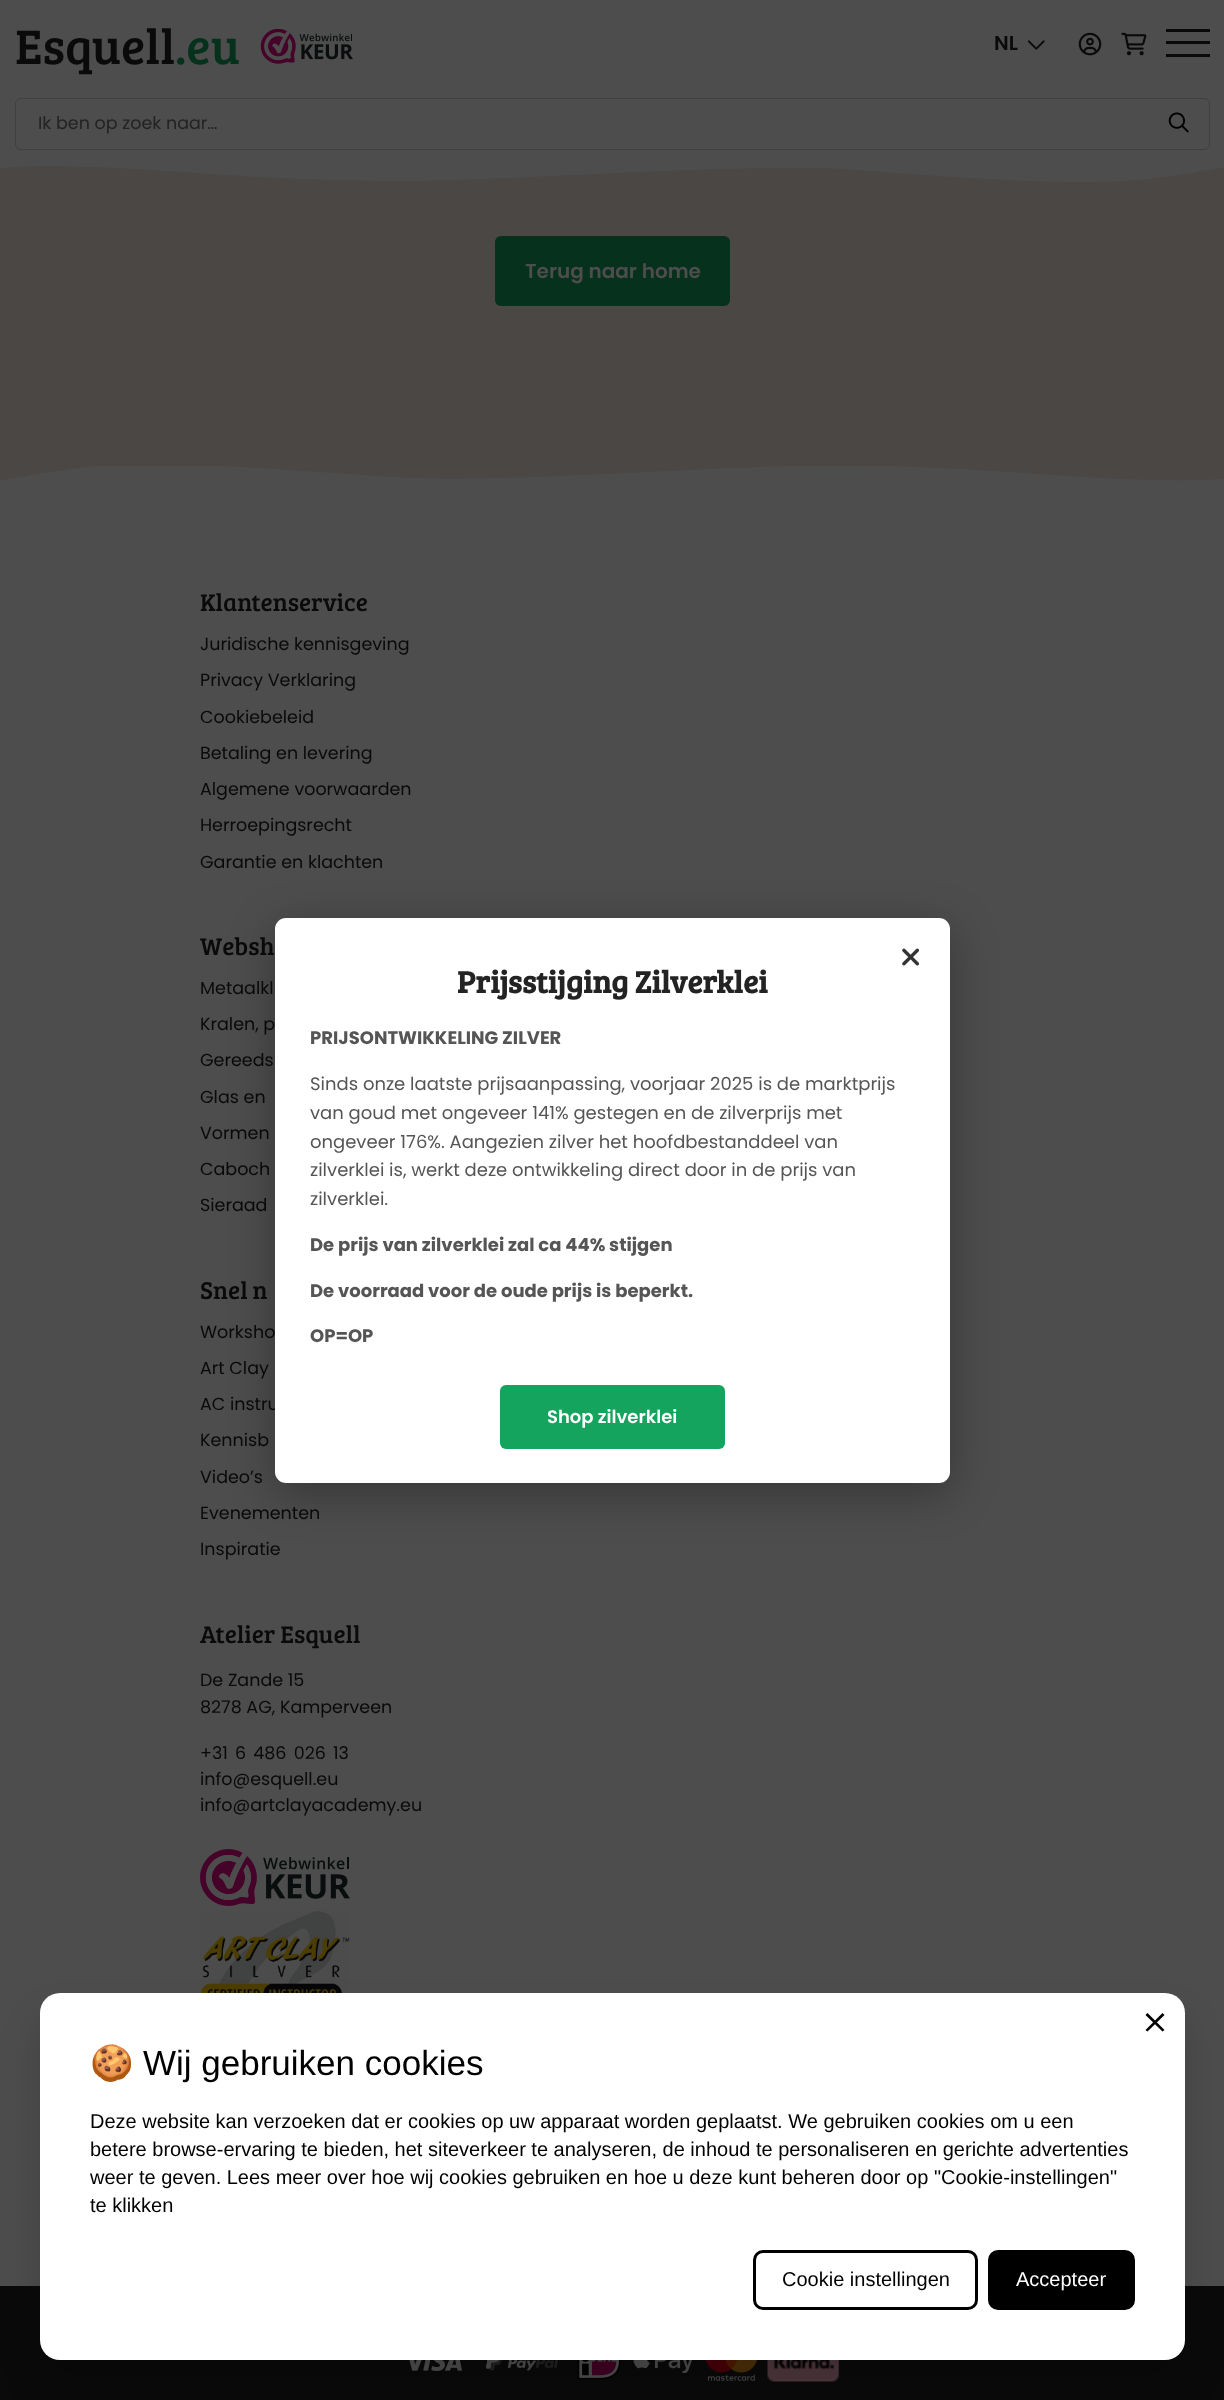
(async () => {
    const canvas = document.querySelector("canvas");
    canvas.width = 1224;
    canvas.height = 2400;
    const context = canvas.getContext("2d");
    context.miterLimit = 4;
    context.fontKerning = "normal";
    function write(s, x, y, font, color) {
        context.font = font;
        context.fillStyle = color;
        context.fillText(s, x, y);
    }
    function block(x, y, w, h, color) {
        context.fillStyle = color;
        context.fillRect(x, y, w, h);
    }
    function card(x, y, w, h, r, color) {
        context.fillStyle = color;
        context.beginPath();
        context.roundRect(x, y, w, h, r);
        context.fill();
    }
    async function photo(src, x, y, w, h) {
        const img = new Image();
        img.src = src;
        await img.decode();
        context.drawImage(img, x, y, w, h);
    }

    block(0, 0, 1224, 2400, "rgb(74, 71, 68)");
    block(0, 0, 1224, 148, "rgb(77, 77, 77)");
    write("Esquell", 15, 64, "50px Bree Serif", "rgb(10, 10, 10)");
    write(".eu", 175, 64, "50px Bree Serif", "rgb(6, 49, 28)");
    await photo("media/1.png", 260, 29, 93, 35);
    write("NL", 994, 50, "600 20px Poppins", "rgb(10, 10, 10)");
    await photo("media/2.png", 1027, 40, 18, 10);
    await photo("media/3.png", 1078, 32, 24, 24);
    await photo("media/4.png", 1121, 32, 26, 24);
    block(1166, 29, 44, 3, "rgb(10, 10, 10)");
    block(1166, 41, 44, 3, "rgb(10, 10, 10)");
    block(1166, 54, 44, 3, "rgb(10, 10, 10)");
    context.save();
    context.beginPath();
    context.rect(0, 148, 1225, 37);
    context.clip();
    context.fillStyle = "rgb(77, 77, 77)";
    context.beginPath();
    context.moveTo(-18, 174);
    context.lineTo(-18, 173);
    context.bezierCurveTo(-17, 123, -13, 67, -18, 15);
    context.lineTo(-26, -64);
    context.lineTo(106, -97);
    context.bezierCurveTo(462, -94, 1178, -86, 1197, -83);
    context.bezierCurveTo(1215, -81, 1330, -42, 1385, -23);
    context.lineTo(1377, 138);
    context.bezierCurveTo(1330, 148, 1219, 170, 1157, 178);
    context.bezierCurveTo(1079, 189, 929, 175, 841, 169);
    context.bezierCurveTo(748, 164, 529, 178, 507, 178);
    context.bezierCurveTo(484, 178, 399, 187, 209, 174);
    context.bezierCurveTo(58, 163, -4, 165, -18, 173);
    context.lineTo(-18, 178);
    context.closePath();
    context.fill();
    context.restore();
    context.beginPath();
    context.roundRect(15.5, 98.5, 1194, 51, 5.5);
    context.strokeStyle = "rgb(64, 64, 64)";
    context.stroke();
    write("Ik ben op zoek naar…", 38, 129, "17.5px Poppins", "rgb(35, 35, 35)");
    await photo("media/5.png", 1168, 112, 21, 21);
    card(495, 236, 235, 70, 6, "rgb(6, 49, 28)");
    write("Terug naar home", 525, 278, "600 20px Poppins", "rgb(77, 77, 77)");
    block(0, 466, 1224, 1820, "rgb(77, 77, 77)");
    context.save();
    context.beginPath();
    context.rect(0, 458, 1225, 26);
    context.clip();
    context.fillStyle = "rgb(74, 71, 68)";
    context.beginPath();
    context.moveTo(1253, 473);
    context.bezierCurveTo(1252, 476, 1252, 476, 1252, 473);
    context.bezierCurveTo(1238, 481, 1175, 484, 1026, 473);
    context.bezierCurveTo(835, 459, 751, 468, 728, 468);
    context.bezierCurveTo(706, 468, 487, 483, 394, 477);
    context.bezierCurveTo(306, 472, 156, 457, 78, 468);
    context.bezierCurveTo(16, 476, -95, 498, -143, 508);
    context.lineTo(-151, 357);
    context.bezierCurveTo(-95, 376, 20, 415, 38, 418);
    context.bezierCurveTo(56, 421, 773, 428, 1129, 432);
    context.lineTo(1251, 401);
    context.lineTo(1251, 319);
    context.lineTo(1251, 313);
    context.lineTo(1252, 313);
    context.lineTo(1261, 399);
    context.lineTo(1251, 401);
    context.closePath();
    context.fill();
    context.restore();
    write("Klantenservice", 200, 611, "25px Bree Serif", "rgb(10, 10, 10)");
    write("Juridische kennisgeving", 200, 650, "17.5px Poppins", "rgb(10, 10, 10)");
    write("Privacy Verklaring", 200, 686, "17.5px Poppins", "rgb(10, 10, 10)");
    write("Cookiebeleid", 200, 723, "17.5px Poppins", "rgb(10, 10, 10)");
    write("Betaling en levering", 200, 759, "17.5px Poppins", "rgb(10, 10, 10)");
    write("Algemene voorwaarden", 200, 795, "17.5px Poppins", "rgb(10, 10, 10)");
    write("Herroepingsrecht", 200, 831, "17.5px Poppins", "rgb(10, 10, 10)");
    write("Garantie en klachten", 200, 868, "17.5px Poppins", "rgb(10, 10, 10)");
    write("Websh", 200, 955, "25px Bree Serif", "rgb(10, 10, 10)");
    write("Metaalkl", 200, 994, "17.5px Poppins", "rgb(10, 10, 10)");
    write("Kralen, p", 200, 1030, "17.5px Poppins", "rgb(10, 10, 10)");
    write("Gereeds", 200, 1066, "17.5px Poppins", "rgb(10, 10, 10)");
    write("Glas en", 200, 1103, "17.5px Poppins", "rgb(10, 10, 10)");
    write("Vormen", 200, 1139, "17.5px Poppins", "rgb(10, 10, 10)");
    write("Caboch", 200, 1175, "17.5px Poppins", "rgb(10, 10, 10)");
    write("Sieraad", 200, 1211, "17.5px Poppins", "rgb(10, 10, 10)");
    write("Snel n", 200, 1299, "25px Bree Serif", "rgb(10, 10, 10)");
    write("Worksho", 200, 1338, "17.5px Poppins", "rgb(10, 10, 10)");
    write("Art Clay", 200, 1374, "17.5px Poppins", "rgb(10, 10, 10)");
    write("AC instru", 200, 1410, "17.5px Poppins", "rgb(10, 10, 10)");
    write("Kennisb", 200, 1446, "17.5px Poppins", "rgb(10, 10, 10)");
    write("Video’s", 200, 1483, "17.5px Poppins", "rgb(10, 10, 10)");
    write("Evenementen", 200, 1519, "17.5px Poppins", "rgb(10, 10, 10)");
    write("Inspiratie", 200, 1555, "17.5px Poppins", "rgb(10, 10, 10)");
    write("Atelier Esquell", 200, 1643, "25px Bree Serif", "rgb(10, 10, 10)");
    write("De Zande 15", 200, 1686, "17.5px Poppins", "rgb(10, 10, 10)");
    write("8278 AG, Kamperveen", 200, 1713, "17.5px Poppins", "rgb(10, 10, 10)");
    context.wordSpacing = "2.5px";
    write("+31 6 486 026 13", 200, 1759, "17.5px Poppins", "rgb(10, 10, 10)");
    context.wordSpacing = "0px";
    write("info@esquell.eu", 200, 1785, "17.5px Poppins", "rgb(10, 10, 10)");
    write("info@artclayacademy.eu", 200, 1811, "17.5px Poppins", "rgb(10, 10, 10)");
    await photo("media/6.png", 200, 1849, 150, 57);
    await photo("media/7.png", 200, 1911, 150, 82);
    context.fillStyle = "rgba(0, 0, 0, 0.3)";
    context.filter = "blur(22.5px)";
    context.beginPath();
    context.roundRect(275, 929, 675, 565, 11);
    context.fill();
    context.filter = "none";
    card(275, 918, 675, 565, 11, "rgb(255, 255, 255)");
    await photo("media/8.png", 902, 948, 17, 18);
    write("Prijsstijging Zilverklei", 457, 993, "bold 31.5px Bree Serif", "rgb(35, 35, 35)");
    write("PRIJSONTWIKKELING ZILVER", 310, 1044, "bold 18px Poppins", "rgb(85, 85, 85)");
    write("Sinds onze laatste prijsaanpassing, voorjaar 2025 is de marktprijs", 310, 1090, "18px Poppins", "rgb(85, 85, 85)");
    write("van goud met ongeveer 141% gestegen en de zilverprijs met", 310, 1119, "18px Poppins", "rgb(85, 85, 85)");
    write("ongeveer 176%. Aangezien zilver het hoofdbestanddeel van", 310, 1148, "18px Poppins", "rgb(85, 85, 85)");
    write("zilverklei is, werkt deze ontwikkeling direct door in de prijs van", 310, 1176, "18px Poppins", "rgb(85, 85, 85)");
    write("zilverklei.", 310, 1205, "18px Poppins", "rgb(85, 85, 85)");
    write("De prijs van zilverklei zal ca 44% stijgen", 310, 1251, "bold 18px Poppins", "rgb(85, 85, 85)");
    write("De voorraad voor de oude prijs is beperkt.", 310, 1297, "bold 18px Poppins", "rgb(85, 85, 85)");
    write("OP=OP", 310, 1342, "bold 18px Poppins", "rgb(85, 85, 85)");
    card(500, 1385, 225, 64, 6, "rgb(20, 164, 94)");
    write("Shop zilverklei", 547, 1423, "600 18px Poppins", "rgb(255, 255, 255)");
    block(0, 2286, 1224, 114, "rgb(10, 10, 10)");
    await photo("media/9.png", 409, 2360, 53, 11);
    await photo("media/10.png", 486, 2360, 72, 11);
    await photo("media/11.png", 577, 2360, 44, 20);
    await photo("media/12.png", 633, 2360, 59, 13);
    await photo("media/13.png", 705, 2360, 52, 21);
    await photo("media/14.png", 767, 2360, 72, 22);
    context.fillStyle = "rgba(0, 0, 0, 0.15)";
    context.filter = "blur(19px)";
    context.beginPath();
    context.roundRect(40, 2018, 1145, 367, 20);
    context.fill();
    context.filter = "none";
    card(40, 1993, 1145, 367, 20, "rgb(255, 255, 255)");
    write("🍪", 90, 2075, "35px Noto Color Emoji", "rgb(0, 0, 0)");
    write("Wij gebruiken cookies", 143, 2075, "35px Liberation Sans", "rgb(0, 0, 0)");
    write("Deze website kan verzoeken dat er cookies op uw apparaat worden geplaatst. We gebruiken cookies om u een", 90, 2128, "20px Liberation Sans", "rgb(0, 0, 0)");
    write("betere browse-ervaring te bieden, het siteverkeer te analyseren, de inhoud te personaliseren en gerichte advertenties", 90, 2156, "20px Liberation Sans", "rgb(0, 0, 0)");
    write("weer te geven. Lees meer over hoe wij cookies gebruiken en hoe u deze kunt beheren door op \"Cookie-instellingen\"", 90, 2184, "20px Liberation Sans", "rgb(0, 0, 0)");
    write("te klikken", 90, 2212, "20px Liberation Sans", "rgb(0, 0, 0)");
    context.beginPath();
    context.moveTo(1162.5, 2013);
    context.lineTo(1164.5, 2015);
    context.lineTo(1147.5, 2031.5);
    context.lineTo(1145.5, 2030);
    context.closePath();
    context.fill();
    context.beginPath();
    context.moveTo(1147.5, 2013);
    context.lineTo(1164.5, 2030);
    context.lineTo(1162.5, 2031.5);
    context.lineTo(1145.5, 2015);
    context.closePath();
    context.fill();
    context.beginPath();
    context.roundRect(754.5, 2251.5, 222, 57, 8.5);
    context.strokeStyle = "rgb(0, 0, 0)";
    context.lineWidth = 3;
    context.stroke();
    write("Cookie instellingen", 782, 2286, "20px Liberation Sans", "rgb(0, 0, 0)");
    context.beginPath();
    context.roundRect(989.5, 2251.5, 144, 57, 8.5);
    context.fill();
    context.stroke();
    write("Accepteer", 1016, 2286, "20px Liberation Sans", "rgb(255, 255, 255)");
})();
